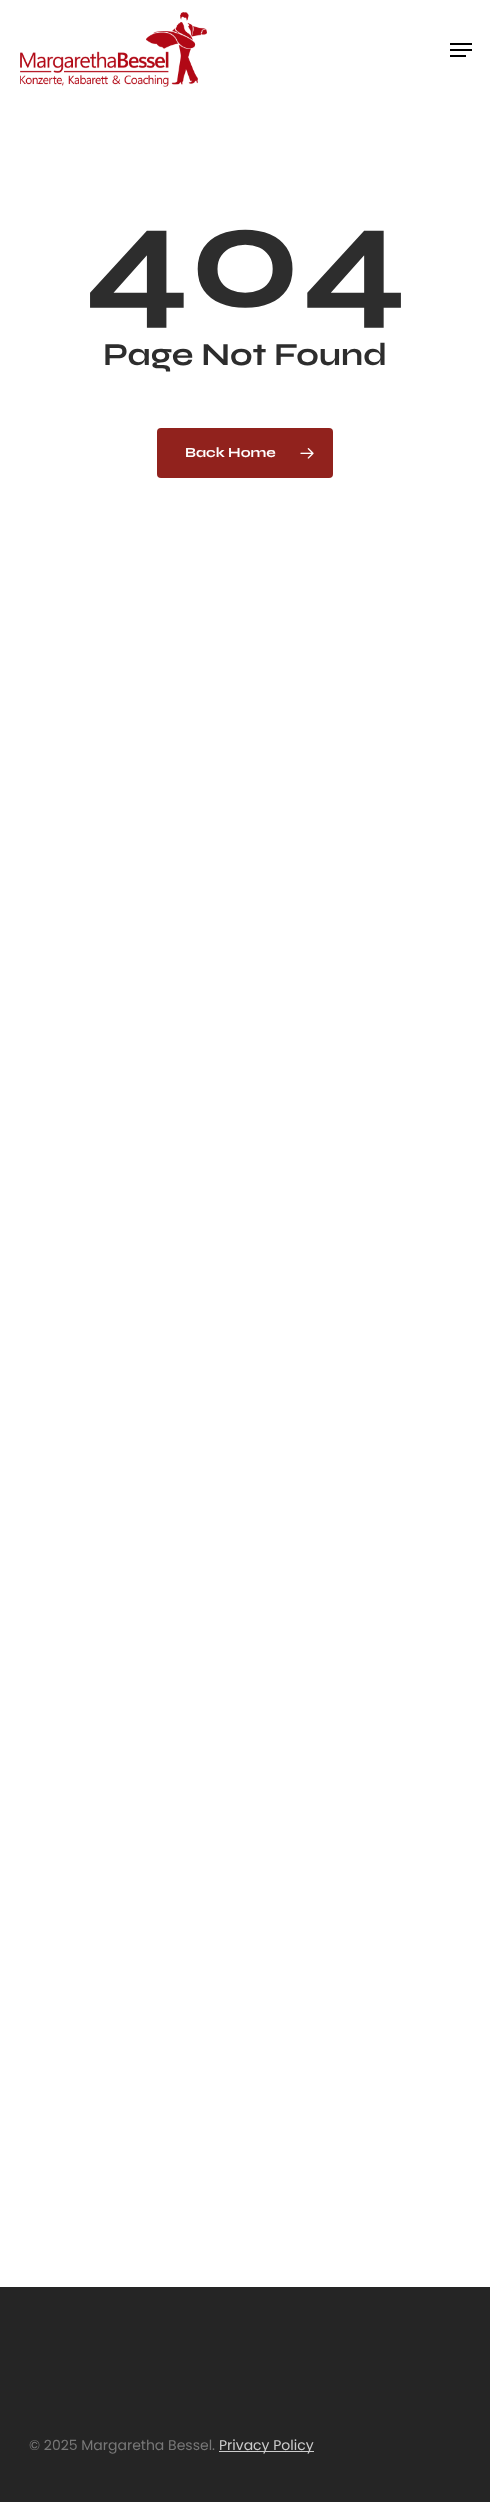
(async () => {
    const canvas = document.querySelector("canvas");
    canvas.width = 490;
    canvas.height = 2502;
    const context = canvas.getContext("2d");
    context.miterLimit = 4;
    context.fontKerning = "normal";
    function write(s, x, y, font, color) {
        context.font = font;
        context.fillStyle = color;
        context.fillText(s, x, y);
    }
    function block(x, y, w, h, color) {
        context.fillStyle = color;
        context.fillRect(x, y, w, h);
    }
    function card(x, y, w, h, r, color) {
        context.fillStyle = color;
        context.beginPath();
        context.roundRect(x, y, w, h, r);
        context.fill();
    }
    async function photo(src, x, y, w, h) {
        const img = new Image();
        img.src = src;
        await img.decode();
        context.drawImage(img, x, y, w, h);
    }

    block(0, 0, 490, 2502, "rgb(255, 255, 255)");
    await photo("media/1.png", 20, 12, 187, 75);
    block(450, 43, 22, 2, "rgb(0, 0, 0)");
    block(450, 55, 16, 2, "rgb(0, 0, 0)");
    block(450, 49, 22, 2, "rgb(0, 0, 0)");
    write("404", 83, 306, "bold 150px Syne", "rgb(45, 45, 45)");
    write("Page Not Found", 103, 365, "bold 32px Syne", "rgb(45, 45, 45)");
    card(157, 428, 176, 50, 4, "rgb(145, 34, 29)");
    write("Back Home", 185, 457, "bold 14px Syne", "rgb(255, 255, 255)");
    await photo("media/2.png", 300, 448, 14, 11);
    block(0, 2287, 490, 215, "rgb(37, 37, 37)");
    write("© 2025 Margaretha Bessel.", 29, 2450, "14px Poppins", "rgb(119, 119, 119)");
    block(219, 2451, 95, 1, "rgb(204, 204, 204)");
    write("Privacy Policy", 219, 2450, "14px Poppins", "rgb(204, 204, 204)");
})();
